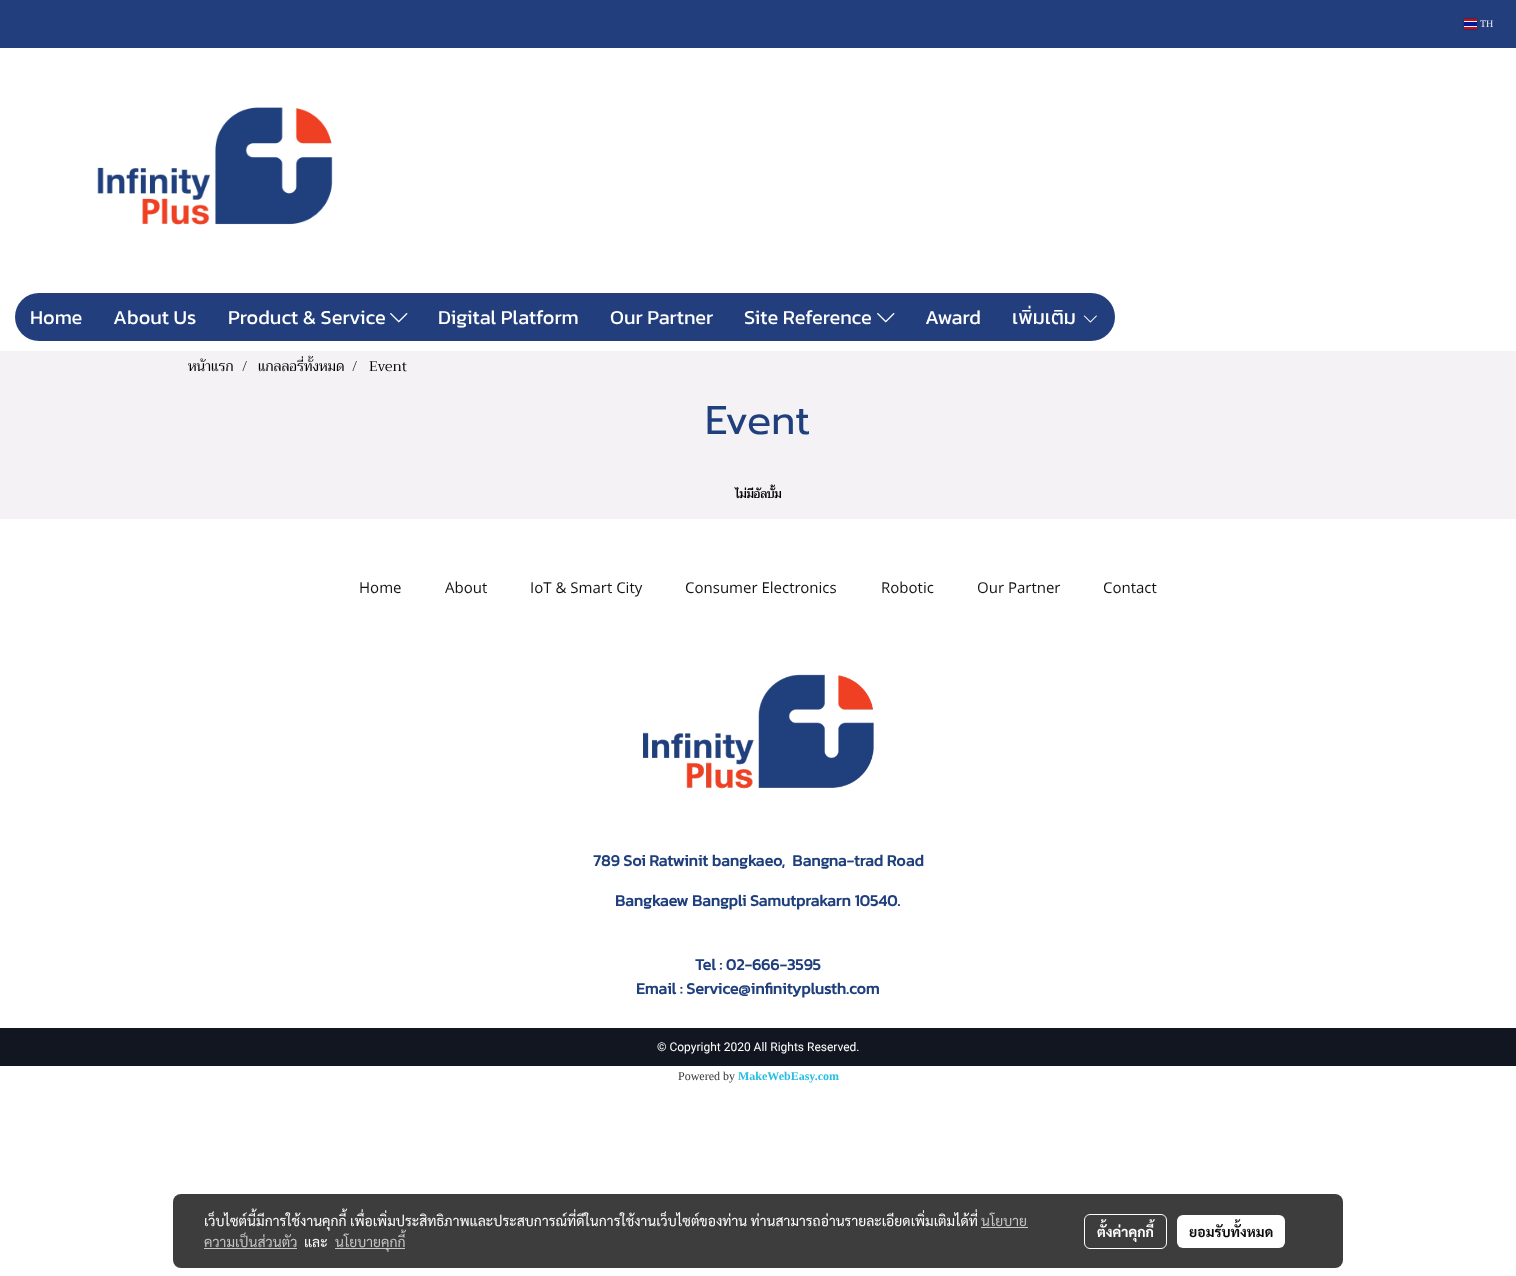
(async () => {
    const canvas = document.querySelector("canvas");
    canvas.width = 1516;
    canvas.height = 1276;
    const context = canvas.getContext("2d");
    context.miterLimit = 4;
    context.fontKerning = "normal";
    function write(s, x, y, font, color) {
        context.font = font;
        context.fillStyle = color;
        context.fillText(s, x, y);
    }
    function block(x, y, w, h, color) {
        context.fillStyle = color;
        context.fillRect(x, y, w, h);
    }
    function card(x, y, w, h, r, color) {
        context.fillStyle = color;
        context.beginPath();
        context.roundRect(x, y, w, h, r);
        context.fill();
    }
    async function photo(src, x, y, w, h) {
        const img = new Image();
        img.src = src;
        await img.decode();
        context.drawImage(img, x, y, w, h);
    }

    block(0, 0, 1516, 1276, "rgb(255, 255, 255)");
    block(0, 351, 1516, 168, "rgb(244, 242, 245)");
    block(0, 0, 1516, 48, "rgb(34, 62, 125)");
    context.fillStyle = "rgba(0, 0, 0, 0.25)";
    context.filter = "blur(1px)";
    context.beginPath();
    context.rect(1464, 19, 13, 10);
    context.fill();
    context.filter = "none";
    await photo("media/1.png", 1464, 19, 13, 10);
    write("TH", 1480, 27, "10px Liberation Serif", "rgb(243, 243, 243)");
    await photo("media/2.png", 97, 107, 236, 118);
    block(97, 293, 1, 48, "rgb(34, 62, 125)");
    context.beginPath();
    context.roundRect(15, 293, 82, 48, [24, 0, 0, 24]);
    context.fill();
    write("Home", 30, 324, "20px Kanit", "rgb(255, 255, 255)");
    block(98, 293, 115, 48, "rgb(34, 62, 125)");
    write("About Us", 113, 324, "20px Kanit", "rgb(255, 255, 255)");
    block(213, 293, 210, 48, "rgb(34, 62, 125)");
    write("Product & Service", 228, 324, "20px Kanit", "rgb(255, 255, 255)");
    await photo("media/3.png", 390, 313, 18, 10);
    block(423, 293, 172, 48, "rgb(34, 62, 125)");
    write("Digital Platform", 438, 324, "20px Kanit", "rgb(255, 255, 255)");
    block(595, 293, 134, 48, "rgb(34, 62, 125)");
    write("Our Partner", 610, 324, "20px Kanit", "rgb(255, 255, 255)");
    block(729, 293, 181, 48, "rgb(34, 62, 125)");
    write("Site Reference", 744, 324, "20px Kanit", "rgb(255, 255, 255)");
    await photo("media/3.png", 877, 313, 18, 10);
    block(910, 293, 87, 48, "rgb(34, 62, 125)");
    write("Award", 925, 324, "20px Kanit", "rgb(255, 255, 255)");
    context.fillStyle = "rgb(34, 62, 125)";
    context.beginPath();
    context.roundRect(997, 293, 118, 48, [0, 24, 24, 0]);
    context.fill();
    write("เพิ่มเติม", 1012, 324, "20px Kanit", "rgb(255, 255, 255)");
    await photo("media/4.png", 1083, 315, 14, 8);
    write("หน้าแรก", 188, 371, "14px Trirong", "rgb(0, 0, 0)");
    write("/", 242, 371, "14px Trirong", "rgb(0, 0, 0)");
    write("แกลลอรี่ทั้งหมด", 258, 371, "14px Trirong", "rgb(0, 0, 0)");
    write("/", 352, 371, "14px Trirong", "rgb(0, 0, 0)");
    write("Event", 369, 371, "14px Trirong", "rgb(0, 0, 0)");
    write("Event", 705, 434, "40px Prompt", "rgb(32, 63, 125)");
    write("ไม่มีอัลบั้ม", 735, 498, "bold 12px Trirong", "rgb(0, 0, 0)");
    write("Home", 359, 593, "15px Open Sans", "rgb(20, 20, 20)");
    write("About", 445, 593, "15px Open Sans", "rgb(20, 20, 20)");
    write("IoT & Smart City", 530, 593, "15px Open Sans", "rgb(20, 20, 20)");
    write("Consumer Electronics", 685, 593, "15px Open Sans", "rgb(20, 20, 20)");
    write("Robotic", 881, 593, "15px Open Sans", "rgb(20, 20, 20)");
    write("Our Partner", 977, 593, "15px Open Sans", "rgb(20, 20, 20)");
    write("Contact", 1103, 593, "15px Open Sans", "rgb(20, 20, 20)");
    await photo("media/5.png", 643, 674, 231, 115);
    write("789 Soi Ratwinit bangkaeo,  Bangna-trad Road", 593, 866, "bold 16px Kanit", "rgb(32, 63, 125)");
    write("Bangkaew Bangpli Samutprakarn 10540.", 615, 906, "bold 16px Kanit", "rgb(32, 63, 125)");
    write("Tel : 02-666-3595", 695, 970, "bold 16px Kanit", "rgb(32, 63, 125)");
    write("Email : Service@infinityplusth.com", 636, 994, "bold 16px Kanit", "rgb(32, 63, 125)");
    block(0, 1028, 1516, 38, "rgb(17, 22, 32)");
    write("© Copyright 2020 All Rights Reserved.", 657, 1051, "12px Roboto", "rgb(255, 255, 255)");
    write("Powered by", 678, 1080, "12px Liberation Serif", "rgb(53, 53, 53)");
    write("MakeWebEasy.com", 738, 1080, "bold 12px Liberation Serif", "rgb(40, 190, 227)");
    card(173, 1194, 1170, 74, 8, "rgb(61, 61, 61)");
    write("เว็บไซต์นี้มีการใช้งานคุกกี้ เพื่อเพิ่มประสิทธิภาพและประสบการณ์ที่ดีในการใช้งานเว็บไซต์ของท่าน ท่านสามารถอ่านรายละเอียดเพิ่มเติมได้ที่", 204, 1226, "14px Sarabun", "rgb(255, 255, 255)");
    write("นโยบาย", 981, 1226, "14px Sarabun", "rgb(197, 197, 197)");
    block(981, 1227, 47, 1, "rgb(197, 197, 197)");
    write("ความเป็นส่วนตัว", 204, 1247, "14px Sarabun", "rgb(197, 197, 197)");
    block(204, 1248, 93, 1, "rgb(197, 197, 197)");
    write("และ", 304, 1247, "14px Sarabun", "rgb(255, 255, 255)");
    block(335, 1248, 70, 1, "rgb(197, 197, 197)");
    write("นโยบายคุกกี้", 335, 1247, "14px Sarabun", "rgb(197, 197, 197)");
    context.beginPath();
    context.roundRect(1084.5, 1214.5, 82, 34, 5.5);
    context.strokeStyle = "rgb(255, 255, 255)";
    context.stroke();
    write("ตั้งค่าคุกกี้", 1097, 1237, "bold 14px Sarabun", "rgb(255, 255, 255)");
    card(1177, 1215, 108, 33, 6, "rgb(255, 255, 255)");
    write("ยอมรับทั้งหมด", 1189, 1237, "bold 14px Sarabun", "rgb(13, 13, 13)");
})();
